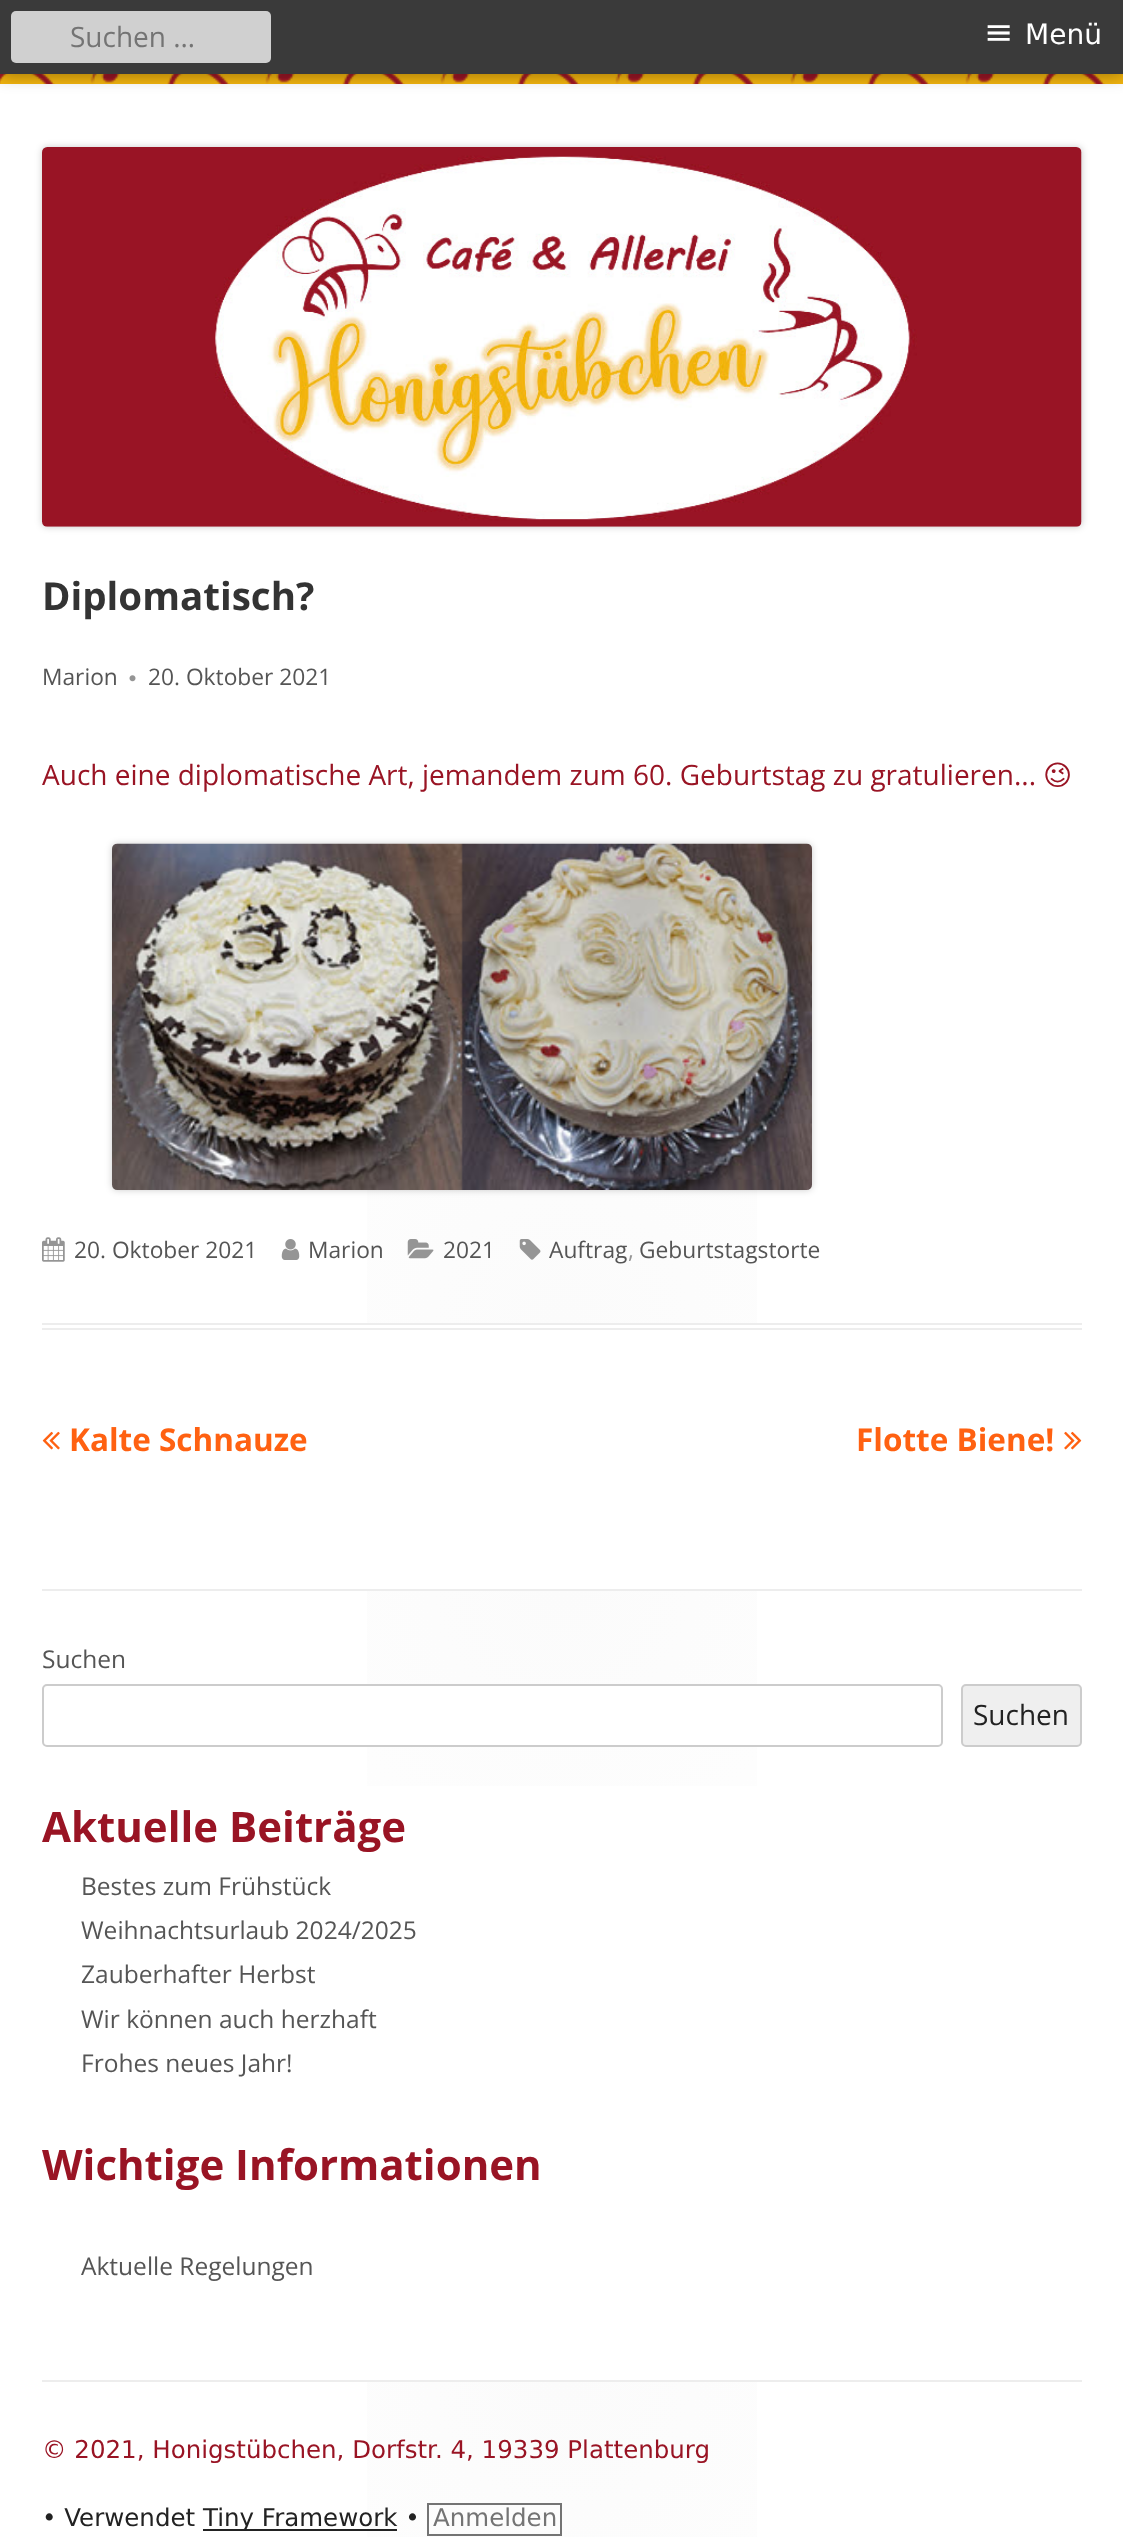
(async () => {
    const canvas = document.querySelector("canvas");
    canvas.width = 1123;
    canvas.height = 2537;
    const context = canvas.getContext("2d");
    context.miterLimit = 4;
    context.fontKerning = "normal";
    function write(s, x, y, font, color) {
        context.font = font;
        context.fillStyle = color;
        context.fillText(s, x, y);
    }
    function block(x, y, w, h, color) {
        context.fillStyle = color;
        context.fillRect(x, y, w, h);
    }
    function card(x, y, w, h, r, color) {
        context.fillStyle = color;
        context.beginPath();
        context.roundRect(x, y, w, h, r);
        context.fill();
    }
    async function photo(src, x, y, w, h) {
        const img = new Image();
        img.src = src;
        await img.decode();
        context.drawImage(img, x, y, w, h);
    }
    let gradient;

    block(0, 0, 1123, 2537, "rgb(242, 180, 14)");
    await photo("media/1.png", 0, 74, 1105, 10);
    block(0, 84, 1123, 2453, "rgb(255, 255, 255)");
    context.fillStyle = "rgba(0, 0, 0, 0.4)";
    context.filter = "blur(9px)";
    context.beginPath();
    context.rect(0, 0, 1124, 74);
    context.fill();
    context.filter = "none";
    block(0, 0, 1123, 74, "rgb(58, 58, 58)");
    card(11, 11, 260, 52, 5, "rgb(208, 208, 208)");
    write("Suchen …", 70, 47, "28px Open Sans", "rgb(116, 116, 116)");
    write("≡", 984, 44, "35px DejaVu Sans", "rgb(255, 255, 255)");
    write("Menü", 1025, 44, "28px DejaVu Sans", "rgb(255, 255, 255)");
    context.fillStyle = "rgba(0, 0, 0, 0.2)";
    context.filter = "blur(3.5px)";
    context.beginPath();
    context.roundRect(42, 147, 1040, 380, 5);
    context.fill();
    context.filter = "none";
    await photo("media/2.png", 42, 147, 1040, 380);
    gradient = context.createRadialGradient(562, 1323, 0, 562, 1323, 520);
    gradient.addColorStop(0, "rgb(251, 251, 251)");
    gradient.addColorStop(1, "rgb(255, 255, 255)");
    context.fillStyle = gradient;
    context.fillRect(367, 1128, 390, 195);
    block(42, 1323, 1040, 2, "rgb(237, 237, 237)");
    block(42, 1328, 1040, 2, "rgb(237, 237, 237)");
    write("Diplomatisch?", 42, 610, "bold 38.5px Open Sans", "rgb(51, 51, 51)");
    write("Marion", 42, 685, "22.75px Open Sans", "rgb(85, 85, 85)");
    await photo("media/3.png", 129, 675, 7, 7);
    write("20. Oktober 2021", 148, 685, "22.75px Open Sans", "rgb(85, 85, 85)");
    write("Auch eine diplomatische Art, jemandem zum 60. Geburtstag zu gratulieren...", 42, 785, "28px Open Sans", "rgb(153, 20, 36)");
    write("😉", 1043, 785, "28px DejaVu Sans", "rgb(153, 20, 36)");
    context.fillStyle = "rgba(0, 0, 0, 0.2)";
    context.filter = "blur(3.5px)";
    context.beginPath();
    context.roundRect(112, 844, 700, 346, 5);
    context.fill();
    context.filter = "none";
    await photo("media/4.png", 112, 843, 700, 347);
    await photo("media/5.png", 42, 1237, 23, 25);
    write("20. Oktober 2021", 74, 1258, "22.75px Open Sans", "rgb(85, 85, 85)");
    await photo("media/6.png", 281, 1239, 19, 21);
    write("Marion", 308, 1258, "22.75px Open Sans", "rgb(85, 85, 85)");
    await photo("media/7.png", 407, 1239, 27, 20);
    write("2021", 443, 1258, "22.75px Open Sans", "rgb(85, 85, 85)");
    await photo("media/8.png", 519, 1239, 22, 21);
    write("Auftrag", 549, 1258, "22.75px Open Sans", "rgb(85, 85, 85)");
    write(",", 628, 1258, "22.75px Open Sans", "rgb(149, 149, 149)");
    write("Geburtstagstorte", 639, 1258, "22.75px Open Sans", "rgb(85, 85, 85)");
    await photo("media/9.png", 42, 1431, 18, 19);
    write("Kalte Schnauze", 69, 1451, "bold 31.5px Open Sans", "rgb(255, 97, 17)");
    write("Flotte Biene!", 856, 1451, "bold 31.5px Open Sans", "rgb(255, 97, 17)");
    await photo("media/10.png", 1064, 1431, 18, 19);
    gradient = context.createRadialGradient(562, 1591, 0, 562, 1591, 520);
    gradient.addColorStop(0, "rgb(251, 251, 251)");
    gradient.addColorStop(1, "rgb(255, 255, 255)");
    context.fillStyle = gradient;
    context.fillRect(367, 1591, 390, 195);
    block(42, 1589, 1040, 2, "rgb(237, 237, 237)");
    write("Suchen", 42, 1668, "24.5px Open Sans", "rgb(85, 85, 85)");
    context.fillStyle = "rgb(255, 255, 255)";
    context.beginPath();
    context.roundRect(43, 1685, 899, 61, 4);
    context.fill();
    context.strokeStyle = "rgb(204, 204, 204)";
    context.lineWidth = 2;
    context.stroke();
    context.fillStyle = "rgb(239, 239, 239)";
    context.beginPath();
    context.roundRect(962, 1685, 119, 61, 4);
    context.fill();
    context.stroke();
    write("Suchen", 973, 1725, "28px Open Sans", "rgb(34, 34, 34)");
    write("Aktuelle Beiträge", 42, 1842, "bold 42px Open Sans", "rgb(153, 20, 36)");
    write("Bestes zum Frühstück", 81, 1895, "24.5px Open Sans", "rgb(85, 85, 85)");
    write("Weihnachtsurlaub 2024/2025", 81, 1939, "24.5px Open Sans", "rgb(85, 85, 85)");
    write("Zauberhafter Herbst", 81, 1983, "24.5px Open Sans", "rgb(85, 85, 85)");
    write("Wir können auch herzhaft", 81, 2028, "24.5px Open Sans", "rgb(85, 85, 85)");
    write("Frohes neues Jahr!", 81, 2072, "24.5px Open Sans", "rgb(85, 85, 85)");
    write("Wichtige Informationen", 42, 2180, "bold 42px Open Sans", "rgb(153, 20, 36)");
    write("Aktuelle Regelungen", 81, 2275, "24.5px Open Sans", "rgb(85, 85, 85)");
    gradient = context.createRadialGradient(562, 2382, 0, 562, 2382, 520);
    gradient.addColorStop(0, "rgb(251, 251, 251)");
    gradient.addColorStop(1, "rgb(255, 255, 255)");
    context.fillStyle = gradient;
    context.fillRect(367, 2382, 390, 155);
    block(42, 2380, 1040, 2, "rgb(237, 237, 237)");
    write("© 2021, Honigstübchen, Dorfstr. 4, 19339 Plattenburg", 42, 2458, "24.5px DejaVu Sans", "rgb(153, 20, 36)");
    write("• Verwendet", 42, 2526, "24.5px DejaVu Sans", "rgb(34, 34, 34)");
    block(203, 2529, 194, 2, "rgb(34, 34, 34)");
    write("Tiny Framework •", 203, 2526, "24.5px DejaVu Sans", "rgb(34, 34, 34)");
    context.strokeStyle = "rgb(116, 116, 116)";
    context.strokeRect(428, 2504, 133, 31);
    write("Anmelden", 433, 2526, "24.5px DejaVu Sans", "rgb(116, 116, 116)");
})();
